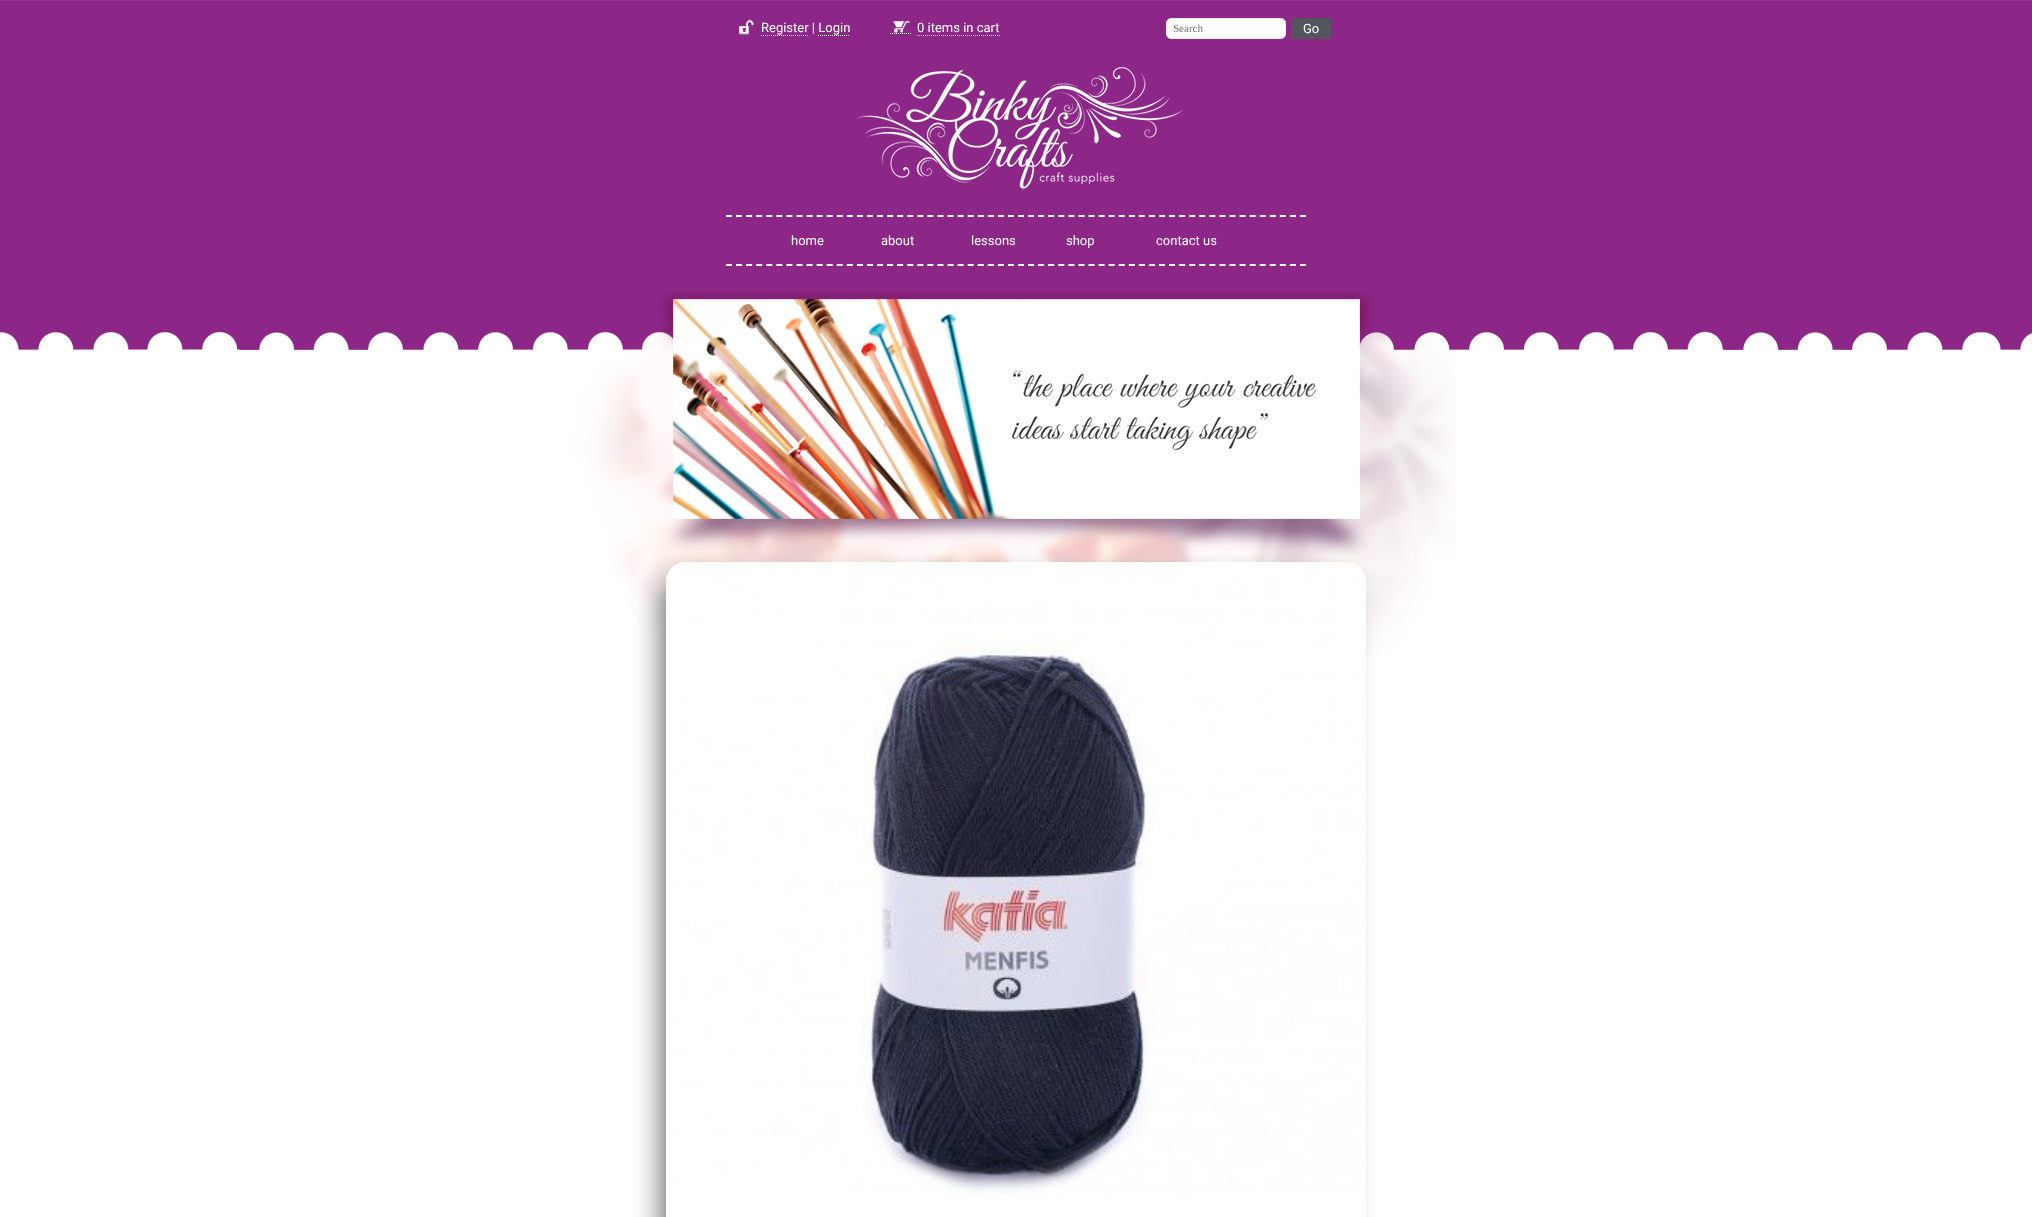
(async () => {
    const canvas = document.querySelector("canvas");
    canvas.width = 2032;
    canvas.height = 1217;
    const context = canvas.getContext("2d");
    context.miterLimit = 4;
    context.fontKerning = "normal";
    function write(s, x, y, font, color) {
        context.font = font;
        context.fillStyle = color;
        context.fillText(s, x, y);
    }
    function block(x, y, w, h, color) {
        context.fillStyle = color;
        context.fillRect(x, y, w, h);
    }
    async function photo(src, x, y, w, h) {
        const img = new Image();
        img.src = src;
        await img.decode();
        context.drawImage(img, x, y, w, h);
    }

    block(0, 0, 2032, 1217, "rgb(255, 255, 255)");
    await photo("media/1.png", 516, 331, 940, 325);
    await photo("media/2.png", 0, 0, 2032, 350);
    await photo("media/3.png", 739, 19, 15, 16);
    write("Register | Login", 761, 32, "13px Roboto", "rgb(255, 255, 255)");
    context.beginPath();
    context.moveTo(761, 35.5);
    context.lineTo(809, 35.5);
    context.strokeStyle = "rgb(255, 255, 255)";
    context.setLineDash([1, 1]);
    context.stroke();
    context.beginPath();
    context.moveTo(818, 35.5);
    context.lineTo(850, 35.5);
    context.stroke();
    context.beginPath();
    context.moveTo(890, 33.5);
    context.lineTo(912, 33.5);
    context.moveTo(917, 35.5);
    context.lineTo(925, 35.5);
    context.stroke();
    context.beginPath();
    context.moveTo(925, 35.5);
    context.lineTo(1000, 35.5);
    context.stroke();
    await photo("media/4.png", 893, 21, 17, 12);
    write("0 items in cart", 917, 32, "13px Roboto", "rgb(255, 255, 255)");
    context.beginPath();
    context.roundRect(1166.5, 18.5, 119, 20, 4.5);
    context.fill();
    context.strokeStyle = "rgb(234, 234, 234)";
    context.setLineDash([]);
    context.stroke();
    write("Search", 1173, 32, "11px Liberation Serif", "rgb(117, 117, 117)");
    block(1291, 18, 40, 21, "rgb(85, 85, 95)");
    write("Go", 1303, 33, "13px Roboto", "rgb(255, 255, 255)");
    await photo("media/5.png", 856, 67, 328, 123);
    context.beginPath();
    context.moveTo(726, 216);
    context.lineTo(1306, 216);
    context.strokeStyle = "rgb(255, 255, 255)";
    context.lineWidth = 2;
    context.setLineDash([6, 4.07]);
    context.stroke();
    context.beginPath();
    context.moveTo(726, 265);
    context.lineTo(1306, 265);
    context.stroke();
    write("home", 791, 245, "13px Roboto", "rgb(255, 255, 255)");
    write("about", 881, 245, "13px Roboto", "rgb(255, 255, 255)");
    write("lessons", 971, 245, "13px Roboto", "rgb(255, 255, 255)");
    write("shop", 1066, 245, "13px Roboto", "rgb(255, 255, 255)");
    write("contact us", 1156, 245, "13px Roboto", "rgb(255, 255, 255)");
    await photo("media/6.png", 658, 290, 717, 265);
    context.fillStyle = "rgb(94, 94, 94)";
    context.filter = "blur(15px)";
    context.beginPath();
    context.roundRect(663, 583, 682, 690, 11);
    context.fill();
    context.filter = "none";
    context.fillStyle = "rgb(255, 255, 255)";
    context.beginPath();
    context.moveTo(686, 562);
    context.lineTo(1346, 562);
    context.bezierCurveTo(1357, 562, 1366, 571, 1366, 582);
    context.lineTo(1366, 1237);
    context.lineTo(666, 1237);
    context.lineTo(666, 582);
    context.bezierCurveTo(666, 571, 675, 562, 686, 562);
    context.closePath();
    context.fill();
    await photo("media/7.png", 666, 562, 700, 634);
})();
